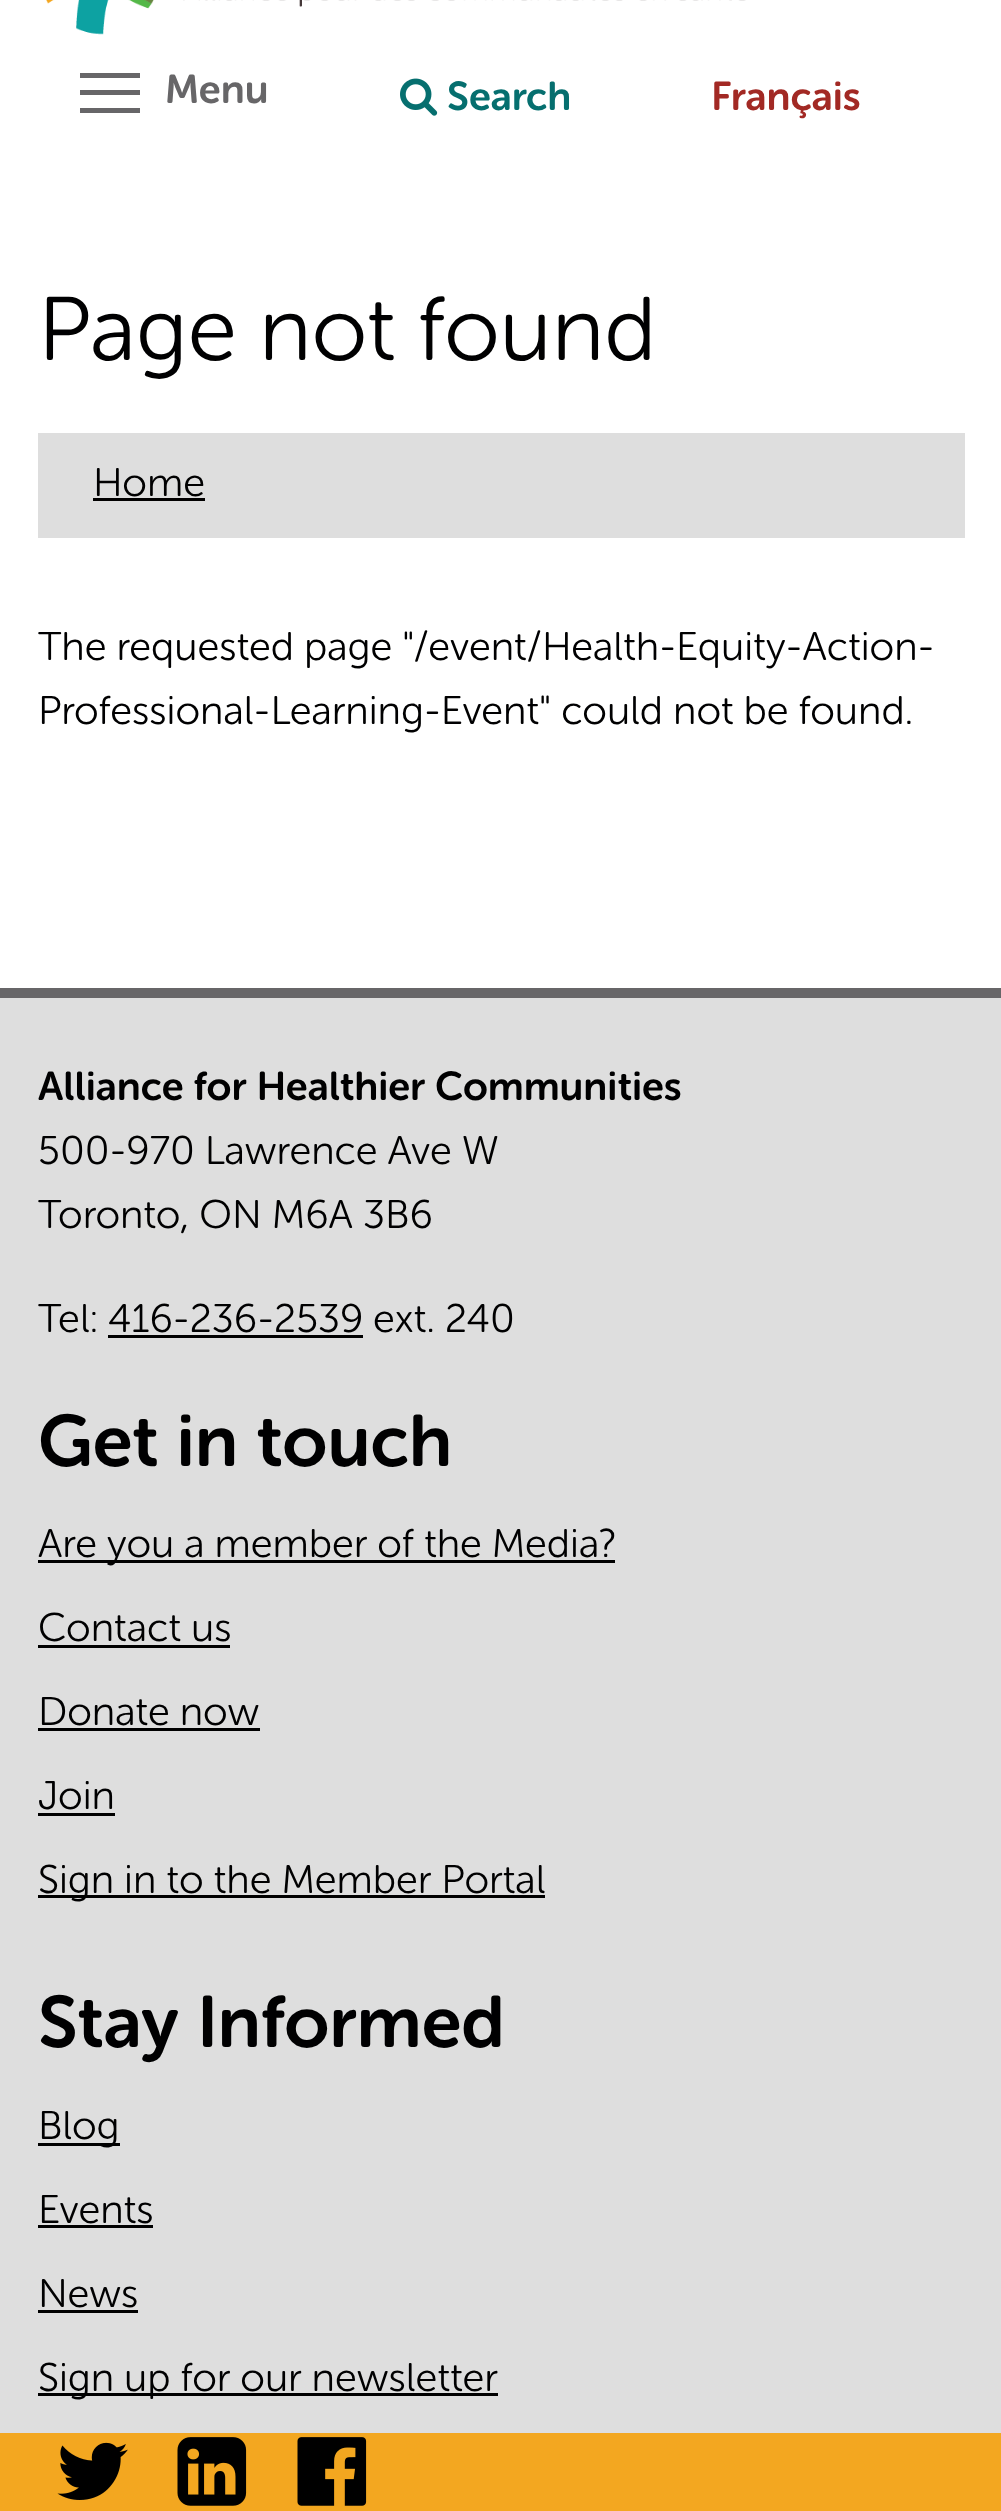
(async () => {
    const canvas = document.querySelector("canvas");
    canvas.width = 1001;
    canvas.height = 2511;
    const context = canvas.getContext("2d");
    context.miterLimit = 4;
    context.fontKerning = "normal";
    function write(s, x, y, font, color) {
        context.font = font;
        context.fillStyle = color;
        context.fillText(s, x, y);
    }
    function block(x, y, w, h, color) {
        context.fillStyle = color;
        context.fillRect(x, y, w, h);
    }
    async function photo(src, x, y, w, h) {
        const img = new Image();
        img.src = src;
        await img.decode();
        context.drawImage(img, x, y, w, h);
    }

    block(0, 0, 1001, 2511, "rgb(255, 255, 255)");
    await photo("media/1.png", 46, 0, 700, 35);
    block(80, 90, 60, 5, "rgb(103, 102, 104)");
    block(80, 73, 60, 5, "rgb(103, 102, 104)");
    block(80, 108, 60, 5, "rgb(103, 102, 104)");
    write("Menu", 165, 103, "600 40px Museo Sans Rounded", "rgb(103, 102, 104)");
    await photo("media/2.png", 400, 78, 38, 38);
    write("Search", 447, 110, "600 40px Museo Sans Rounded", "rgb(6, 111, 111)");
    write("Français", 711, 110, "600 40px Museo Sans Rounded", "rgb(162, 41, 36)");
    write("Page not found", 38, 360, "300 90px Museo Sans Rounded", "rgb(0, 0, 1)");
    block(38, 433, 927, 105, "rgb(222, 222, 222)");
    write("Home", 93, 496, "300 40px Museo Sans Rounded", "rgb(0, 0, 1)");
    block(93, 498, 112, 3, "rgb(1, 0, 0)");
    write("The requested page \"/event/Health-Equity-Action-", 38, 660, "300 40px Museo Sans Rounded", "rgb(0, 0, 1)");
    write("Professional-Learning-Event\" could not be found.", 38, 724, "300 40px Museo Sans Rounded", "rgb(0, 0, 1)");
    block(0, 998, 1001, 1435, "rgb(222, 222, 222)");
    block(0, 988, 1001, 10, "rgb(103, 102, 104)");
    write("Alliance for Healthier Communities", 38, 1100, "600 40px Museo Sans Rounded", "rgb(0, 0, 1)");
    write("500-970 Lawrence Ave W", 38, 1164, "300 40px Museo Sans Rounded", "rgb(0, 0, 1)");
    write("Toronto, ON M6A 3B6", 38, 1228, "300 40px Museo Sans Rounded", "rgb(0, 0, 1)");
    write("Tel:", 38, 1332, "300 40px Museo Sans Rounded", "rgb(0, 0, 1)");
    write("416-236-2539", 108, 1332, "300 40px Museo Sans Rounded", "rgb(0, 0, 1)");
    block(108, 1335, 255, 3, "rgb(0, 0, 0)");
    write("ext. 240", 373, 1332, "300 40px Museo Sans Rounded", "rgb(0, 0, 1)");
    write("Get in touch", 38, 1466, "600 72.5px Museo Sans Rounded", "rgb(0, 0, 1)");
    block(38, 1560, 577, 3, "rgb(0, 0, 0)");
    write("Are you a member of the Media?", 38, 1557, "300 40px Museo Sans Rounded", "rgb(0, 0, 1)");
    write("Contact us", 38, 1641, "300 40px Museo Sans Rounded", "rgb(0, 0, 1)");
    block(38, 1645, 192, 3, "rgb(0, 0, 0)");
    write("Donate now", 38, 1725, "300 40px Museo Sans Rounded", "rgb(0, 0, 1)");
    block(38, 1728, 222, 3, "rgb(0, 0, 0)");
    write("Join", 38, 1809, "300 40px Museo Sans Rounded", "rgb(0, 0, 1)");
    block(38, 1813, 77, 3, "rgb(0, 0, 0)");
    block(38, 1895, 507, 3, "rgb(0, 0, 0)");
    write("Sign in to the Member Portal", 38, 1893, "300 40px Museo Sans Rounded", "rgb(0, 0, 1)");
    write("Stay Informed", 38, 2047, "600 72.5px Museo Sans Rounded", "rgb(0, 0, 1)");
    block(38, 2143, 82, 3, "rgb(0, 0, 0)");
    write("Blog", 38, 2139, "300 40px Museo Sans Rounded", "rgb(0, 0, 1)");
    write("Events", 38, 2223, "300 40px Museo Sans Rounded", "rgb(0, 0, 1)");
    block(38, 2225, 115, 3, "rgb(0, 0, 0)");
    write("News", 38, 2307, "300 40px Museo Sans Rounded", "rgb(0, 0, 1)");
    block(38, 2310, 100, 3, "rgb(0, 0, 0)");
    block(38, 2393, 460, 3, "rgb(0, 0, 0)");
    write("Sign up for our newsletter", 38, 2391, "300 40px Museo Sans Rounded", "rgb(0, 0, 1)");
    block(0, 2433, 1001, 78, "rgb(243, 167, 32)");
    await photo("media/3.png", 57, 2442, 71, 58);
    await photo("media/4.png", 177, 2437, 70, 69);
    await photo("media/5.png", 297, 2437, 70, 69);
})();
